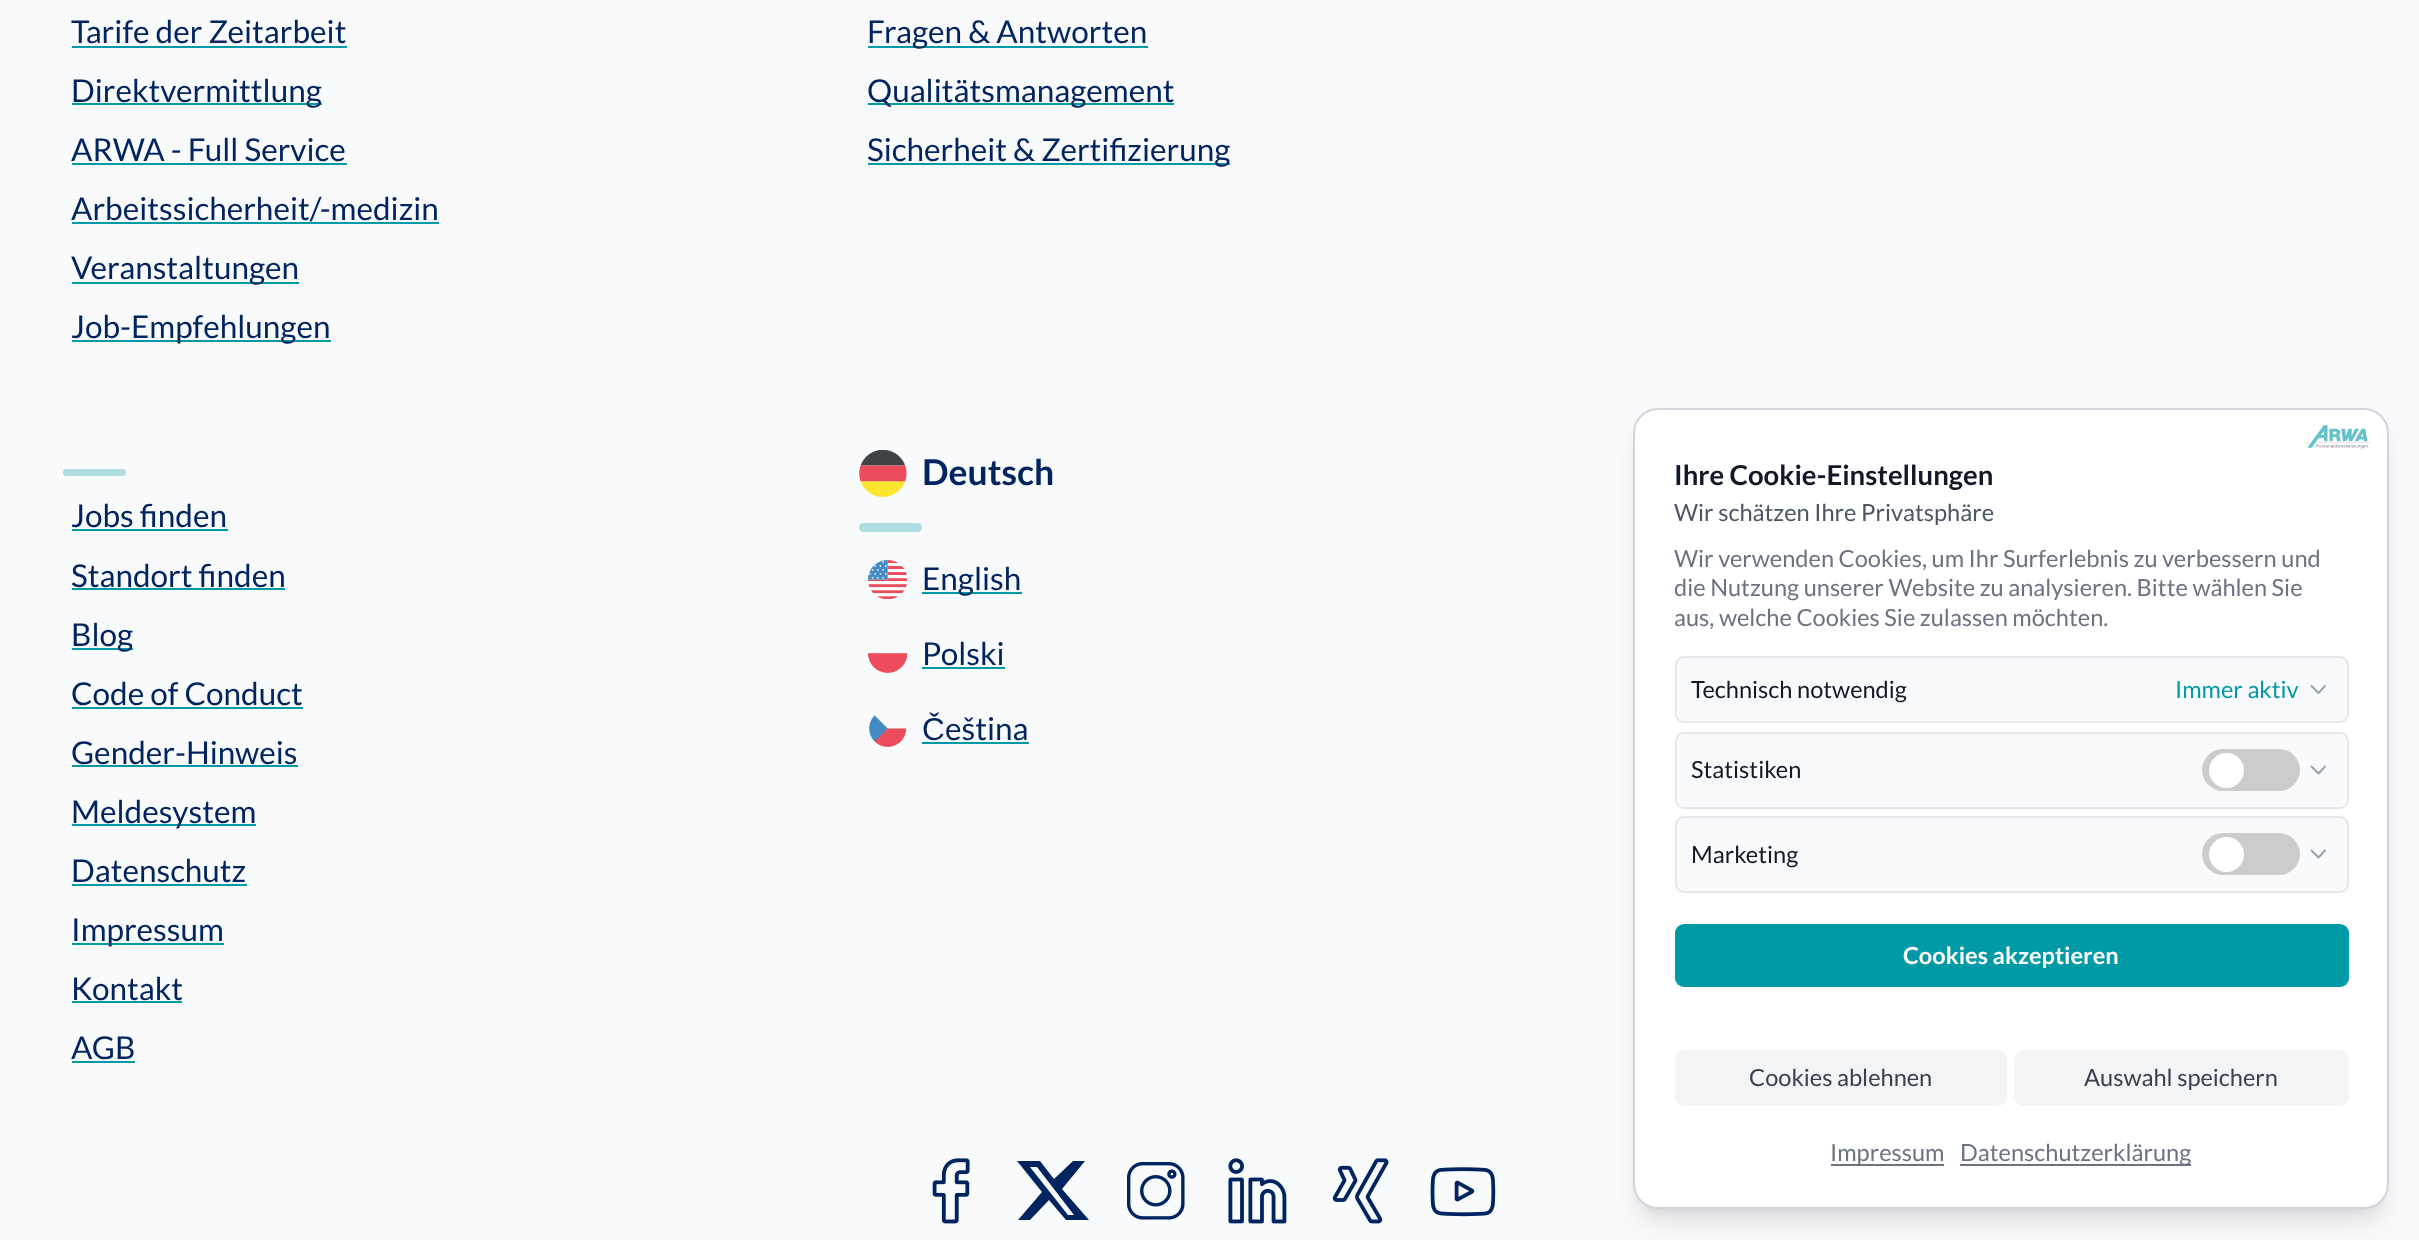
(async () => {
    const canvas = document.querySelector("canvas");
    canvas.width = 2419;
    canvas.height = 1240;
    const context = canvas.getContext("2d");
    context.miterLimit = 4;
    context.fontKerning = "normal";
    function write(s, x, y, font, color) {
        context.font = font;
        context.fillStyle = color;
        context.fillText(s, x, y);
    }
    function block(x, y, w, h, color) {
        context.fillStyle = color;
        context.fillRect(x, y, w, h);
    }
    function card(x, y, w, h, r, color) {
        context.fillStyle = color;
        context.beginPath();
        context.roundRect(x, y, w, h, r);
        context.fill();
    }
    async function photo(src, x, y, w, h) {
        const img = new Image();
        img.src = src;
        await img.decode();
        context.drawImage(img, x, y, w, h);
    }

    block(0, 0, 2419, 1240, "rgb(249, 250, 251)");
    write("Tarife der Zeitarbeit", 71, 43, "31.5px Lato", "rgb(0, 36, 95)");
    block(72, 46, 275, 2, "rgb(0, 154, 166)");
    block(72, 103, 250, 2, "rgb(0, 154, 166)");
    write("Direktvermittlung", 71, 102, "31.5px Lato", "rgb(0, 36, 95)");
    write("ARWA - Full Service", 71, 161, "31.5px Lato", "rgb(0, 36, 95)");
    block(72, 163, 275, 2, "rgb(0, 154, 166)");
    write("Arbeitssicherheit/-medizin", 71, 220, "31.5px Lato", "rgb(0, 36, 95)");
    block(72, 222, 367, 2, "rgb(0, 154, 166)");
    block(72, 282, 227, 2, "rgb(0, 154, 166)");
    write("Veranstaltungen", 71, 279, "31.5px Lato", "rgb(0, 36, 95)");
    block(72, 340, 259, 2, "rgb(0, 154, 166)");
    write("Job-Empfehlungen", 71, 338, "31.5px Lato", "rgb(0, 36, 95)");
    block(868, 46, 280, 2, "rgb(0, 154, 166)");
    write("Fragen & Antworten", 867, 43, "31.5px Lato", "rgb(0, 36, 95)");
    block(868, 103, 306, 2, "rgb(0, 154, 166)");
    write("Qualitätsmanagement", 867, 102, "31.5px Lato", "rgb(0, 36, 95)");
    block(868, 163, 362, 2, "rgb(0, 154, 166)");
    write("Sicherheit & Zertifizierung", 867, 161, "31.5px Lato", "rgb(0, 36, 95)");
    card(63, 469, 63, 7, 3.5, "rgb(174, 221, 226)");
    write("Jobs finden", 71, 527, "31.5px Lato", "rgb(0, 36, 95)");
    block(72, 529, 156, 2, "rgb(0, 154, 166)");
    write("Standort finden", 71, 587, "31.5px Lato", "rgb(0, 36, 95)");
    block(72, 588, 213, 2, "rgb(0, 154, 166)");
    block(72, 648, 61, 2, "rgb(0, 154, 166)");
    write("Blog", 71, 646, "31.5px Lato", "rgb(0, 36, 95)");
    write("Code of Conduct", 71, 705, "31.5px Lato", "rgb(0, 36, 95)");
    block(72, 707, 231, 2, "rgb(0, 154, 166)");
    write("Gender-Hinweis", 71, 764, "31.5px Lato", "rgb(0, 36, 95)");
    block(72, 765, 226, 2, "rgb(0, 154, 166)");
    block(72, 824, 184, 2, "rgb(0, 154, 166)");
    write("Meldesystem", 71, 823, "31.5px Lato", "rgb(0, 36, 95)");
    write("Datenschutz", 71, 882, "31.5px Lato", "rgb(0, 36, 95)");
    block(72, 884, 175, 2, "rgb(0, 154, 166)");
    block(72, 943, 152, 2, "rgb(0, 154, 166)");
    write("Impressum", 71, 941, "31.5px Lato", "rgb(0, 36, 95)");
    write("Kontakt", 71, 1000, "31.5px Lato", "rgb(0, 36, 95)");
    block(72, 1001, 110, 2, "rgb(0, 154, 166)");
    write("AGB", 71, 1059, "31.5px Lato", "rgb(0, 36, 95)");
    block(72, 1061, 63, 2, "rgb(0, 154, 166)");
    await photo("media/1.png", 859, 450, 48, 47);
    write("Deutsch", 922, 485, "bold 35.5px Lato", "rgb(0, 36, 95)");
    card(859, 523, 63, 9, 4.5, "rgb(174, 221, 226)");
    await photo("media/2.png", 868, 560, 39, 39);
    block(922, 592, 100, 2, "rgb(0, 154, 166)");
    write("English", 922, 590, "31.5px Lato", "rgb(0, 36, 95)");
    await photo("media/3.png", 868, 653, 39, 20);
    write("Polski", 922, 665, "31.5px Lato", "rgb(0, 36, 95)");
    block(922, 667, 83, 2, "rgb(0, 154, 166)");
    await photo("media/4.png", 869, 715, 38, 32);
    write("Č", 922, 740, "31.5px Liberation Sans", "rgb(0, 36, 95)");
    write("eština", 945, 740, "31.5px Lato", "rgb(0, 36, 95)");
    block(922, 742, 107, 2, "rgb(0, 154, 166)");
    await photo("media/5.png", 932, 1158, 38, 66);
    context.fillStyle = "rgb(0, 36, 95)";
    context.beginPath();
    context.moveTo(1073, 1161);
    context.lineTo(1085, 1161);
    context.lineTo(1062, 1189);
    context.lineTo(1089, 1220);
    context.lineTo(1066, 1220);
    context.lineTo(1049, 1200);
    context.lineTo(1030, 1220);
    context.lineTo(1018, 1220);
    context.lineTo(1042, 1192);
    context.lineTo(1017, 1161);
    context.lineTo(1040, 1161);
    context.lineTo(1054, 1179);
    context.closePath();
    context.moveTo(1068, 1215);
    context.lineTo(1074, 1215);
    context.lineTo(1037, 1167);
    context.lineTo(1030, 1167);
    context.closePath();
    context.fill();
    await photo("media/6.png", 1127, 1162, 58, 58);
    await photo("media/7.png", 1228, 1158, 59, 66);
    await photo("media/8.png", 1332, 1158, 57, 66);
    await photo("media/9.png", 1430, 1167, 66, 50);
    context.fillStyle = "rgba(0, 0, 0, 0.1)";
    context.filter = "blur(5px)";
    context.beginPath();
    context.roundRect(1640, 422, 742, 787, 18);
    context.fill();
    context.filter = "none";
    context.filter = "blur(13px)";
    context.beginPath();
    context.roundRect(1638, 431, 746, 791, 19);
    context.fill();
    context.filter = "none";
    context.fillStyle = "rgb(255, 255, 255)";
    context.beginPath();
    context.roundRect(1634, 409, 754, 799, 24);
    context.fill();
    context.strokeStyle = "rgb(209, 213, 219)";
    context.lineWidth = 2;
    context.stroke();
    await photo("media/10.png", 2305, 425, 66, 24);
    write("Ihre Cookie-Einstellungen", 1674, 485, "bold 27.5px Lato", "rgb(17, 24, 39)");
    write("Wir schätzen Ihre Privatsphäre", 1674, 521, "23.6px Lato", "rgb(75, 85, 99)");
    write("Wir verwenden Cookies, um Ihr Surferlebnis zu verbessern und", 1674, 567, "23.6px Lato", "rgb(107, 114, 128)");
    write("die Nutzung unserer Website zu analysieren. Bitte wählen Sie", 1674, 596, "23.6px Lato", "rgb(107, 114, 128)");
    write("aus, welche Cookies Sie zulassen möchten.", 1674, 626, "23.6px Lato", "rgb(107, 114, 128)");
    context.fillStyle = "rgb(249, 250, 251)";
    context.beginPath();
    context.roundRect(1676, 657, 672, 65, 8);
    context.fill();
    context.strokeStyle = "rgb(229, 231, 235)";
    context.stroke();
    write("Technisch notwendig", 1691, 698, "23.6px Lato", "rgb(17, 24, 39)");
    write("Immer aktiv", 2175, 698, "23.6px Lato", "rgb(0, 154, 166)");
    context.beginPath();
    context.moveTo(2325, 686);
    context.lineTo(2318.5, 693);
    context.lineTo(2311.5, 686);
    context.strokeStyle = "rgb(156, 163, 175)";
    context.lineCap = "round";
    context.lineJoin = "round";
    context.stroke();
    context.fillStyle = "rgb(249, 250, 251)";
    context.beginPath();
    context.roundRect(1676, 733, 672, 75, 8);
    context.fill();
    context.strokeStyle = "rgb(229, 231, 235)";
    context.lineJoin = "miter";
    context.stroke();
    write("Statistiken", 1691, 778, "23.6px Lato", "rgb(17, 24, 39)");
    card(2202, 749, 98, 42, 21, "rgb(204, 204, 204)");
    context.fillStyle = "rgb(255, 255, 255)";
    context.beginPath();
    context.arc(2226.5, 770.5, 17.5, 0, Math.PI * 2);
    context.fill();
    context.beginPath();
    context.moveTo(2325, 766.5);
    context.lineTo(2318.5, 773.5);
    context.lineTo(2311.5, 766.5);
    context.strokeStyle = "rgb(156, 163, 175)";
    context.lineJoin = "round";
    context.stroke();
    context.fillStyle = "rgb(249, 250, 251)";
    context.beginPath();
    context.roundRect(1676, 817, 672, 75, 8);
    context.fill();
    context.strokeStyle = "rgb(229, 231, 235)";
    context.lineJoin = "miter";
    context.stroke();
    write("Marketing", 1691, 863, "23.6px Lato", "rgb(17, 24, 39)");
    card(2202, 833, 98, 42, 21, "rgb(204, 204, 204)");
    context.fillStyle = "rgb(255, 255, 255)";
    context.beginPath();
    context.arc(2226.5, 854.5, 17.5, 0, Math.PI * 2);
    context.fill();
    context.beginPath();
    context.moveTo(2325, 850.5);
    context.lineTo(2318.5, 857.5);
    context.lineTo(2311.5, 850.5);
    context.strokeStyle = "rgb(156, 163, 175)";
    context.lineJoin = "round";
    context.stroke();
    card(1675, 924, 674, 63, 9, "rgb(0, 154, 166)");
    write("Cookies akzeptieren", 1903, 964, "bold 23.6px Lato", "rgb(255, 255, 255)");
    card(1675, 1050, 332, 56, 9, "rgb(243, 244, 246)");
    write("Cookies ablehnen", 1749, 1086, "23.6px Lato", "rgb(55, 65, 81)");
    card(2014, 1050, 335, 56, 9, "rgb(243, 244, 246)");
    write("Auswahl speichern", 2084, 1086, "23.6px Lato", "rgb(55, 65, 81)");
    block(1831, 1164, 113, 2, "rgb(107, 114, 128)");
    write("Impressum", 1830, 1161, "23.6px Lato", "rgb(107, 114, 128)");
    block(1960, 1164, 231, 2, "rgb(107, 114, 128)");
    write("Datenschutzerklärung", 1960, 1161, "23.6px Lato", "rgb(107, 114, 128)");
})();
